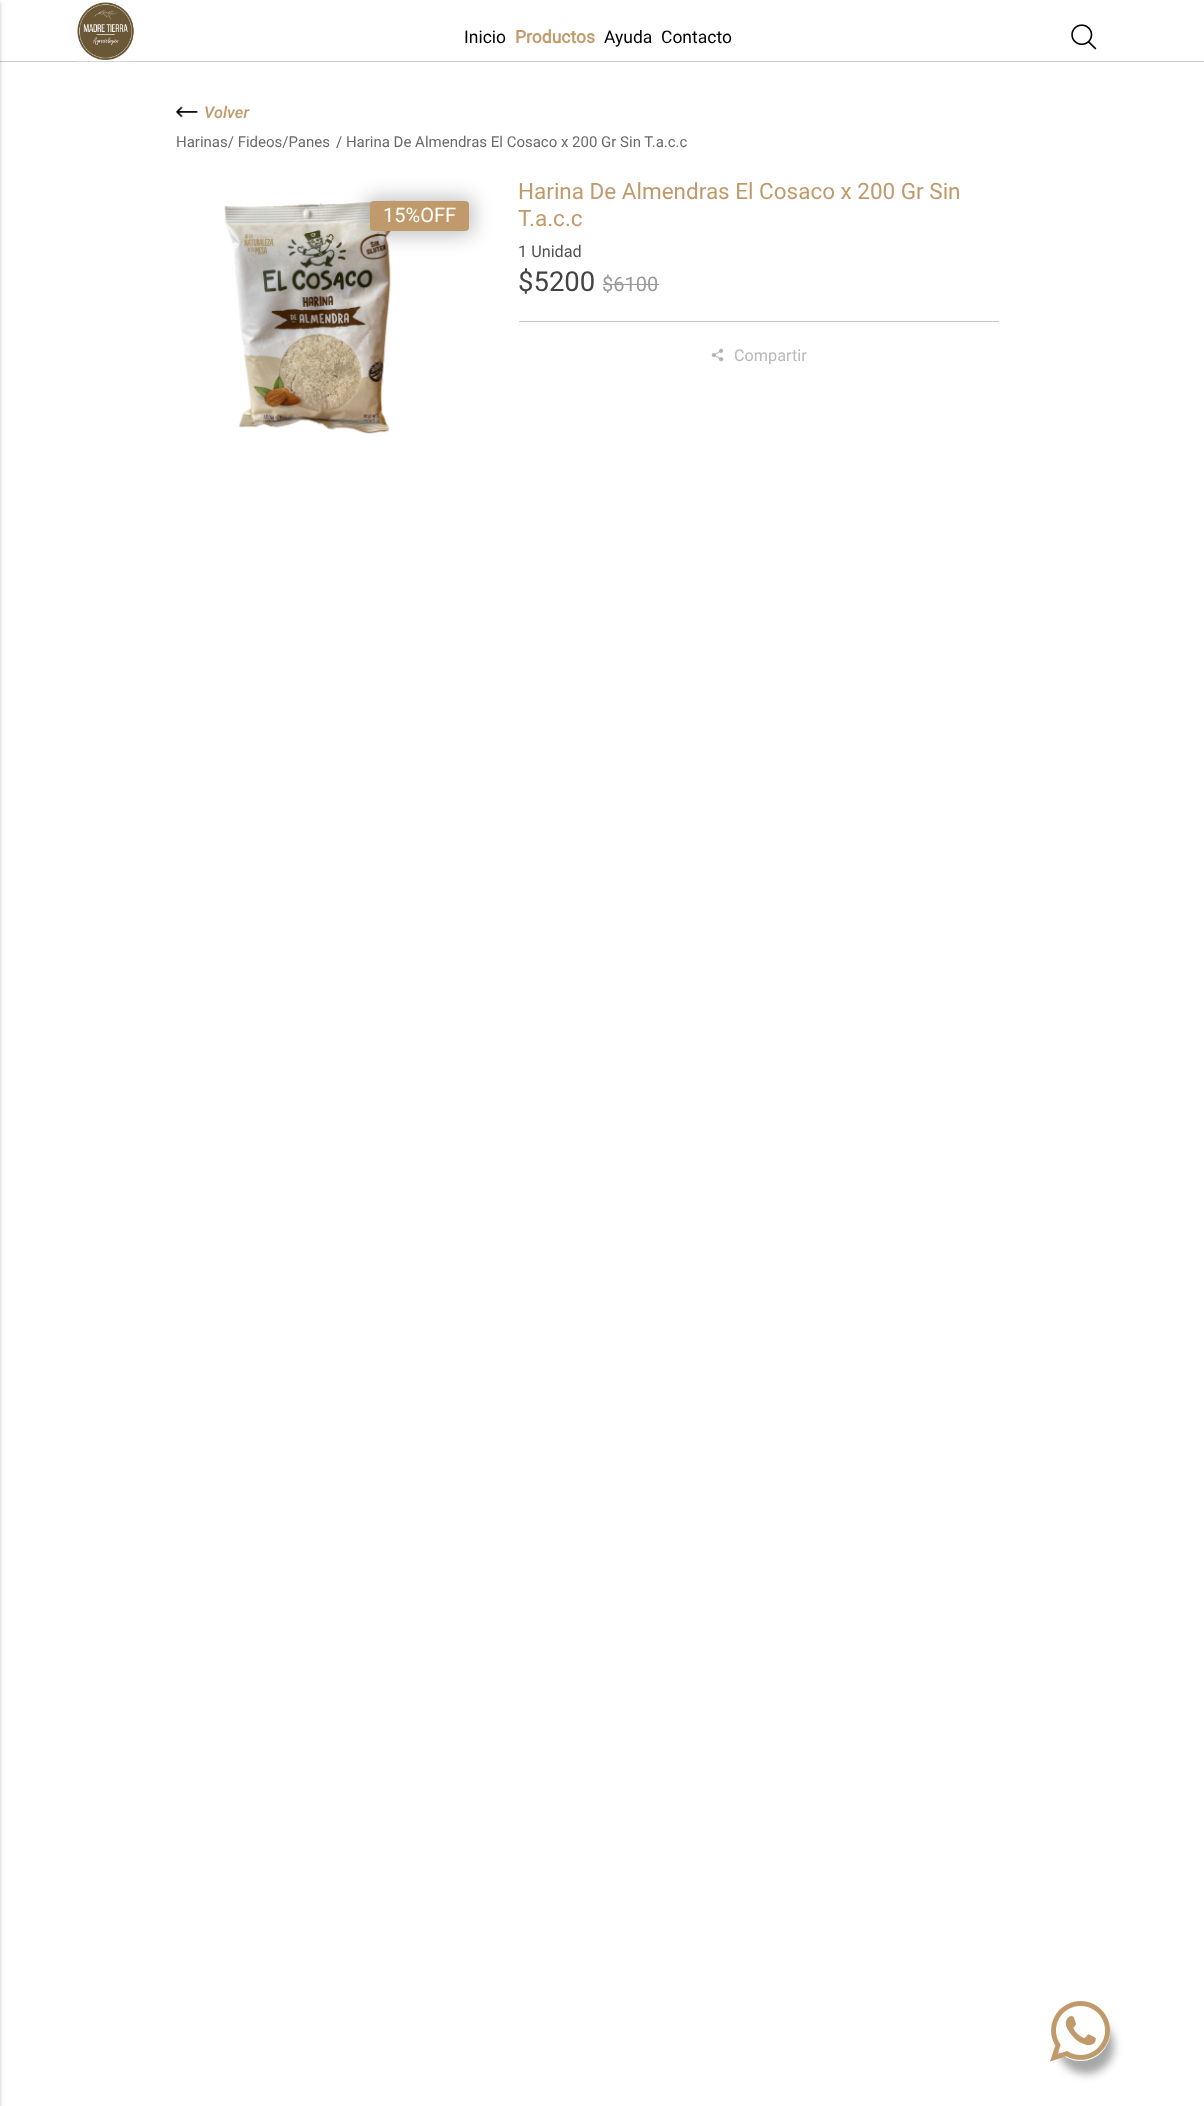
(async () => {
    const canvas = document.querySelector("canvas");
    canvas.width = 1204;
    canvas.height = 2106;
    const context = canvas.getContext("2d");
    context.miterLimit = 4;
    context.fontKerning = "normal";
    function write(s, x, y, font, color) {
        context.font = font;
        context.fillStyle = color;
        context.fillText(s, x, y);
    }
    function block(x, y, w, h, color) {
        context.fillStyle = color;
        context.fillRect(x, y, w, h);
    }
    function card(x, y, w, h, r, color) {
        context.fillStyle = color;
        context.beginPath();
        context.roundRect(x, y, w, h, r);
        context.fill();
    }
    async function photo(src, x, y, w, h) {
        const img = new Image();
        img.src = src;
        await img.decode();
        context.drawImage(img, x, y, w, h);
    }

    block(0, 0, 1204, 2106, "rgb(255, 255, 255)");
    block(0, 61, 1204, 1, "rgb(201, 201, 201)");
    context.fillStyle = "rgba(0, 0, 0, 0.12)";
    context.filter = "blur(3px)";
    context.beginPath();
    context.rect(-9, 1, 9, 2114);
    context.fill();
    context.filter = "none";
    context.fillStyle = "rgba(0, 0, 0, 0.14)";
    context.filter = "blur(1px)";
    context.beginPath();
    context.rect(-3, 3, 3, 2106);
    context.fill();
    context.filter = "none";
    await photo("media/1.png", 76, 2, 59, 60);
    write("Inicio", 464, 43, "17.5px Roboto", "rgb(0, 0, 0)");
    write("Productos", 515, 43, "bold 17.5px Roboto", "rgb(193, 154, 107)");
    write("Ayuda", 604, 43, "17.5px Roboto", "rgb(0, 0, 0)");
    write("Contacto", 661, 43, "17.5px Roboto", "rgb(0, 0, 0)");
    await photo("media/2.png", 1071, 24, 26, 26);
    await photo("media/3.png", 176, 106, 22, 12);
    write("Volver", 204, 118, "italic 500 16.25px Roboto", "rgb(193, 154, 107)");
    write("Harinas/ Fideos/Panes", 176, 147, "15px Roboto", "rgb(105, 105, 105)");
    write("/ Harina De Almendras El Cosaco x 200 Gr Sin T.a.c.c", 336, 147, "15px Roboto", "rgb(105, 105, 105)");
    await photo("media/4.png", 224, 200, 172, 234);
    context.fillStyle = "rgba(0, 0, 0, 0.25)";
    context.filter = "blur(9.5px)";
    context.beginPath();
    context.roundRect(366, 198, 107, 37, 8);
    context.fill();
    context.filter = "none";
    card(370, 201, 99, 30, 4, "rgb(193, 154, 107)");
    write("15%OFF", 383, 222, "20px 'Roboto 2'", "rgb(255, 255, 255)");
    write("Harina De Almendras El Cosaco x 200 Gr Sin", 518, 199, "22.5px Roboto", "rgb(193, 154, 107)");
    write("T.a.c.c", 518, 226, "22.5px Roboto", "rgb(193, 154, 107)");
    write("1 Unidad", 518, 257, "16.25px Roboto", "rgb(82, 82, 82)");
    write("$5200", 518, 291, "27.5px Roboto", "rgb(67, 67, 67)");
    write("$6100", 602, 291, "20px Roboto", "rgb(154, 154, 154)");
    block(603, 284, 56, 1, "rgb(154, 154, 154)");
    block(519, 321, 480, 1, "rgb(199, 199, 199)");
    await photo("media/5.png", 711, 348, 13, 14);
    write("Compartir", 734, 361, "16.25px Roboto", "rgb(185, 185, 185)");
    context.fillStyle = "rgba(0, 0, 0, 0.35)";
    context.filter = "blur(4.5px)";
    context.beginPath();
    context.roundRect(1058, 2018, 56, 56, 28);
    context.fill();
    context.filter = "none";
    card(1051, 2003, 59, 58, 29, "rgb(255, 255, 255)");
    await photo("media/6.png", 1050, 2001, 60, 61);
})();
